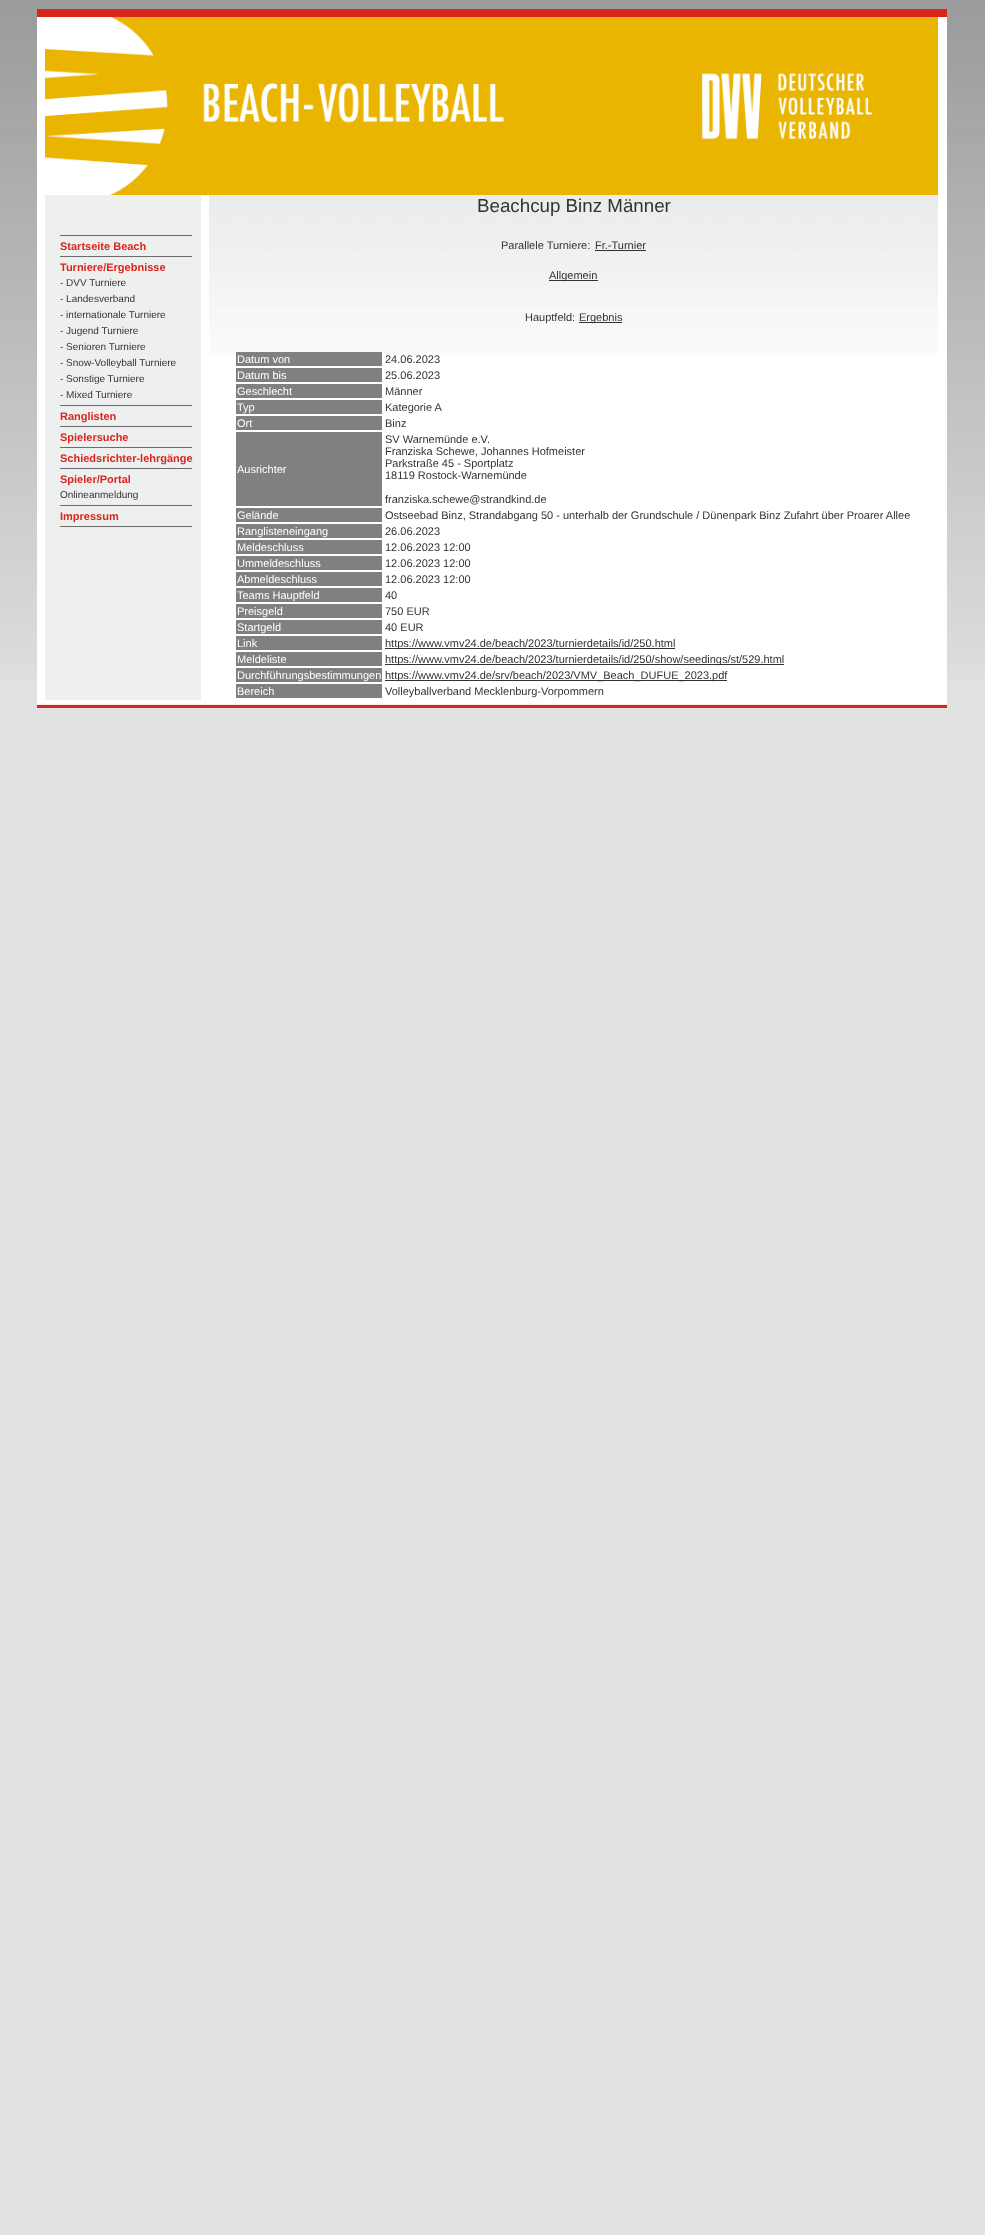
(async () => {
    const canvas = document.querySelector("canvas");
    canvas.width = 985;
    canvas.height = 2235;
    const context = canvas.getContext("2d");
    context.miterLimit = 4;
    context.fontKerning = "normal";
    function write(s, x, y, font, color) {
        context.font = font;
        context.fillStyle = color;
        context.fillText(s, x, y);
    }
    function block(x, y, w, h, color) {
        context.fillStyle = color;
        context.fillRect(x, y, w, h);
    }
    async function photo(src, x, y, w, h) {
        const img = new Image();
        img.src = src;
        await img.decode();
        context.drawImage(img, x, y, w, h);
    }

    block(0, 0, 985, 2235, "rgb(225, 227, 226)");
    await photo("media/1.png", 0, 0, 985, 680);
    block(37, 9, 910, 8, "rgb(218, 37, 28)");
    block(37, 17, 8, 683, "rgb(255, 255, 255)");
    await photo("media/2.png", 45, 17, 893, 178);
    block(938, 17, 9, 683, "rgb(255, 255, 255)");
    await photo("media/3.png", 45, 195, 164, 505);
    block(60, 235, 132, 1, "rgb(107, 107, 107)");
    write("Startseite Beach", 60, 250, "bold 11px Liberation Sans", "rgb(218, 37, 28)");
    block(60, 256, 132, 1, "rgb(107, 107, 107)");
    write("Turniere/Ergebnisse", 60, 271, "bold 11px Liberation Sans", "rgb(218, 37, 28)");
    write("- DVV Turniere", 60, 286, "10px Liberation Sans", "rgb(51, 51, 51)");
    write("- Landesverband", 60, 302, "10px Liberation Sans", "rgb(51, 51, 51)");
    write("- internationale Turniere", 60, 318, "10px Liberation Sans", "rgb(51, 51, 51)");
    write("- Jugend Turniere", 60, 334, "10px Liberation Sans", "rgb(51, 51, 51)");
    write("- Senioren Turniere", 60, 350, "10px Liberation Sans", "rgb(51, 51, 51)");
    write("- Snow-Volleyball Turniere", 60, 366, "10px Liberation Sans", "rgb(51, 51, 51)");
    write("- Sonstige Turniere", 60, 382, "10px Liberation Sans", "rgb(51, 51, 51)");
    write("- Mixed Turniere", 60, 398, "10px Liberation Sans", "rgb(51, 51, 51)");
    block(60, 405, 132, 1, "rgb(107, 107, 107)");
    write("Ranglisten", 60, 420, "bold 11px Liberation Sans", "rgb(218, 37, 28)");
    block(60, 426, 132, 1, "rgb(107, 107, 107)");
    write("Spielersuche", 60, 441, "bold 11px Liberation Sans", "rgb(218, 37, 28)");
    block(60, 447, 132, 1, "rgb(107, 107, 107)");
    write("Schiedsrichter-lehrgänge", 60, 462, "bold 11px Liberation Sans", "rgb(218, 37, 28)");
    block(60, 468, 132, 1, "rgb(107, 107, 107)");
    write("Spieler/Portal", 60, 483, "bold 11px Liberation Sans", "rgb(218, 37, 28)");
    write("Onlineanmeldung", 60, 498, "10px Liberation Sans", "rgb(51, 51, 51)");
    block(60, 505, 132, 1, "rgb(107, 107, 107)");
    write("Impressum", 60, 520, "bold 11px Liberation Sans", "rgb(218, 37, 28)");
    block(60, 526, 132, 1, "rgb(107, 107, 107)");
    block(209, 355, 729, 345, "rgb(255, 255, 255)");
    await photo("media/4.png", 209, 195, 729, 160);
    write("Beachcup Binz Männer", 477, 212, "18.75px Liberation Sans", "rgb(51, 51, 51)");
    write("Parallele Turniere:", 501, 249, "11px Liberation Sans", "rgb(51, 51, 51)");
    write("Fr.-Turnier", 595, 249, "11px Liberation Sans", "rgb(51, 51, 51)");
    block(595, 250, 51, 1, "rgb(51, 51, 51)");
    block(549, 280, 49, 1, "rgb(51, 51, 51)");
    write("Allgemein", 549, 279, "11px Liberation Sans", "rgb(51, 51, 51)");
    write("Hauptfeld:", 525, 321, "11px Liberation Sans", "rgb(51, 51, 51)");
    block(579, 322, 43, 1, "rgb(51, 51, 51)");
    write("Ergebnis", 579, 321, "11px Liberation Sans", "rgb(51, 51, 51)");
    block(236, 352, 146, 14, "rgb(128, 128, 128)");
    write("Datum von", 237, 363, "11px Liberation Sans", "rgb(255, 255, 255)");
    write("24.06.2023", 385, 363, "11px Liberation Sans", "rgb(51, 51, 51)");
    block(236, 368, 146, 14, "rgb(128, 128, 128)");
    write("Datum bis", 237, 379, "11px Liberation Sans", "rgb(255, 255, 255)");
    write("25.06.2023", 385, 379, "11px Liberation Sans", "rgb(51, 51, 51)");
    block(236, 384, 146, 14, "rgb(128, 128, 128)");
    write("Geschlecht", 237, 395, "11px Liberation Sans", "rgb(255, 255, 255)");
    write("Männer", 385, 395, "11px Liberation Sans", "rgb(51, 51, 51)");
    block(236, 400, 146, 14, "rgb(128, 128, 128)");
    write("Typ", 237, 411, "11px Liberation Sans", "rgb(255, 255, 255)");
    write("Kategorie A", 385, 411, "11px Liberation Sans", "rgb(51, 51, 51)");
    block(236, 416, 146, 14, "rgb(128, 128, 128)");
    write("Ort", 237, 427, "11px Liberation Sans", "rgb(255, 255, 255)");
    write("Binz", 385, 427, "11px Liberation Sans", "rgb(51, 51, 51)");
    block(236, 432, 146, 74, "rgb(128, 128, 128)");
    write("Ausrichter", 237, 473, "11px Liberation Sans", "rgb(255, 255, 255)");
    write("SV Warnemünde e.V.", 385, 443, "11px Liberation Sans", "rgb(51, 51, 51)");
    write("Franziska Schewe, Johannes Hofmeister", 385, 455, "11px Liberation Sans", "rgb(51, 51, 51)");
    write("Parkstraße 45 - Sportplatz", 385, 467, "11px Liberation Sans", "rgb(51, 51, 51)");
    write("18119 Rostock-Warnemünde", 385, 479, "11px Liberation Sans", "rgb(51, 51, 51)");
    write("franziska.schewe@strandkind.de", 385, 503, "11px Liberation Sans", "rgb(51, 51, 51)");
    block(236, 508, 146, 14, "rgb(128, 128, 128)");
    write("Gelände", 237, 519, "11px Liberation Sans", "rgb(255, 255, 255)");
    write("Ostseebad Binz, Strandabgang 50 - unterhalb der Grundschule / Dünenpark Binz Zufahrt über Proarer Allee", 385, 519, "11px Liberation Sans", "rgb(51, 51, 51)");
    block(236, 524, 146, 14, "rgb(128, 128, 128)");
    write("Ranglisteneingang", 237, 535, "11px Liberation Sans", "rgb(255, 255, 255)");
    write("26.06.2023", 385, 535, "11px Liberation Sans", "rgb(51, 51, 51)");
    block(236, 540, 146, 14, "rgb(128, 128, 128)");
    write("Meldeschluss", 237, 551, "11px Liberation Sans", "rgb(255, 255, 255)");
    write("12.06.2023 12:00", 385, 551, "11px Liberation Sans", "rgb(51, 51, 51)");
    block(236, 556, 146, 14, "rgb(128, 128, 128)");
    write("Ummeldeschluss", 237, 567, "11px Liberation Sans", "rgb(255, 255, 255)");
    write("12.06.2023 12:00", 385, 567, "11px Liberation Sans", "rgb(51, 51, 51)");
    block(236, 572, 146, 14, "rgb(128, 128, 128)");
    write("Abmeldeschluss", 237, 583, "11px Liberation Sans", "rgb(255, 255, 255)");
    write("12.06.2023 12:00", 385, 583, "11px Liberation Sans", "rgb(51, 51, 51)");
    block(236, 588, 146, 14, "rgb(128, 128, 128)");
    write("Teams Hauptfeld", 237, 599, "11px Liberation Sans", "rgb(255, 255, 255)");
    write("40", 385, 599, "11px Liberation Sans", "rgb(51, 51, 51)");
    block(236, 604, 146, 14, "rgb(128, 128, 128)");
    write("Preisgeld", 237, 615, "11px Liberation Sans", "rgb(255, 255, 255)");
    write("750 EUR", 385, 615, "11px Liberation Sans", "rgb(51, 51, 51)");
    block(236, 620, 146, 14, "rgb(128, 128, 128)");
    write("Startgeld", 237, 631, "11px Liberation Sans", "rgb(255, 255, 255)");
    write("40 EUR", 385, 631, "11px Liberation Sans", "rgb(51, 51, 51)");
    block(236, 636, 146, 14, "rgb(128, 128, 128)");
    write("Link", 237, 647, "11px Liberation Sans", "rgb(255, 255, 255)");
    block(385, 648, 290, 1, "rgb(51, 51, 51)");
    write("https://www.vmv24.de/beach/2023/turnierdetails/id/250.html", 385, 647, "11px Liberation Sans", "rgb(51, 51, 51)");
    block(236, 652, 146, 14, "rgb(128, 128, 128)");
    write("Meldeliste", 237, 663, "11px Liberation Sans", "rgb(255, 255, 255)");
    block(385, 664, 399, 1, "rgb(51, 51, 51)");
    write("https://www.vmv24.de/beach/2023/turnierdetails/id/250/show/seedings/st/529.html", 385, 663, "11px Liberation Sans", "rgb(51, 51, 51)");
    block(236, 668, 146, 14, "rgb(128, 128, 128)");
    write("Durchführungsbestimmungen", 237, 679, "11px Liberation Sans", "rgb(255, 255, 255)");
    block(385, 680, 342, 1, "rgb(51, 51, 51)");
    write("https://www.vmv24.de/srv/beach/2023/VMV_Beach_DUFUE_2023.pdf", 385, 679, "11px Liberation Sans", "rgb(51, 51, 51)");
    block(236, 684, 146, 14, "rgb(128, 128, 128)");
    write("Bereich", 237, 695, "11px Liberation Sans", "rgb(255, 255, 255)");
    write("Volleyballverband Mecklenburg-Vorpommern", 385, 695, "11px Liberation Sans", "rgb(51, 51, 51)");
    await photo("media/5.png", 37, 700, 910, 8);
})();
